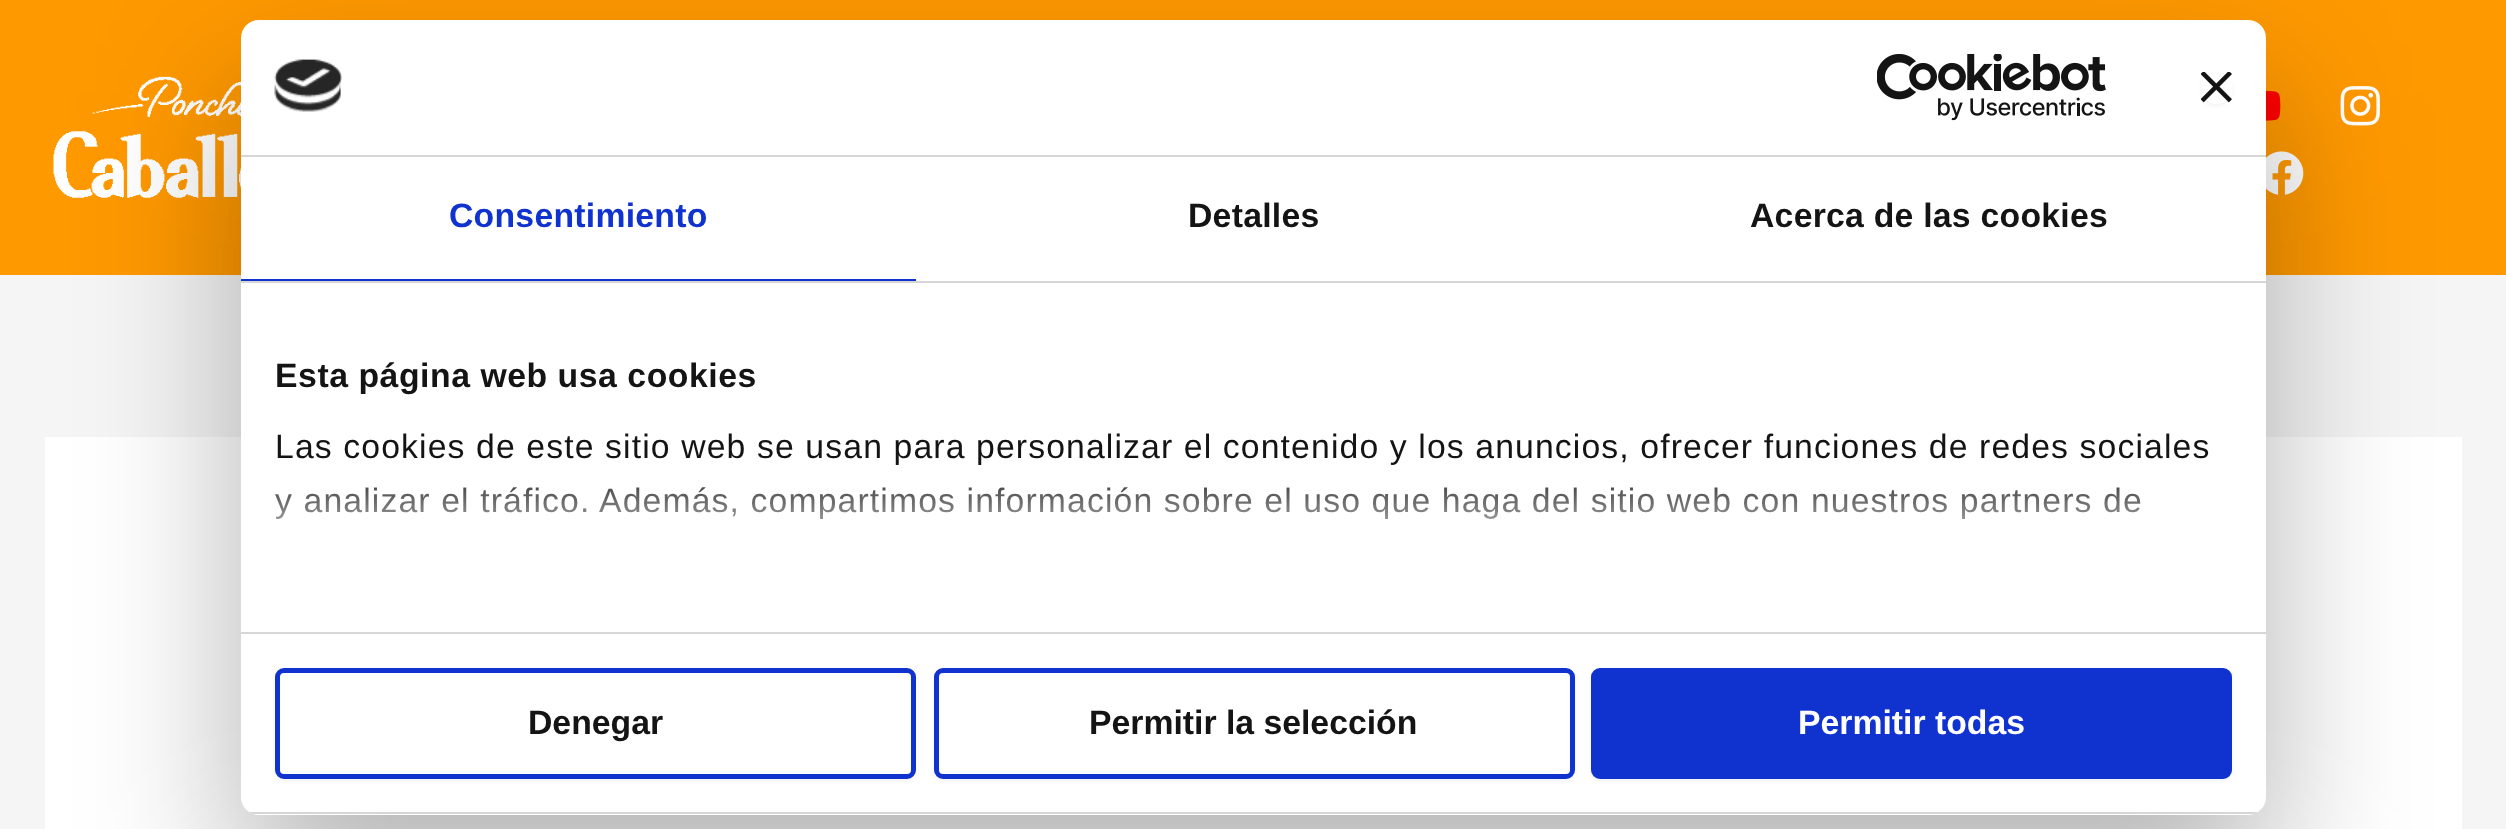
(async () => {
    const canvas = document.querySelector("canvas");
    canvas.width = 2506;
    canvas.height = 829;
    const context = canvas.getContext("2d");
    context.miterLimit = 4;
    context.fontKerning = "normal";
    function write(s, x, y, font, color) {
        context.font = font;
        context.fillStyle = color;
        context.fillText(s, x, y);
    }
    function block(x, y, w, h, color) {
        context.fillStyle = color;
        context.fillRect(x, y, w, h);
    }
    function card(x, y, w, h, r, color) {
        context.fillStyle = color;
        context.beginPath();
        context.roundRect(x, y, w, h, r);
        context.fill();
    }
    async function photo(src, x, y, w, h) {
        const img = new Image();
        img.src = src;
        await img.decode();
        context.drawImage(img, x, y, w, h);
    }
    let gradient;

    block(0, 0, 2506, 829, "rgb(245, 245, 245)");
    block(0, 0, 2506, 275, "rgb(255, 153, 0)");
    await photo("media/1.png", 53, 76, 188, 122);
    await photo("media/2.png", 2266, 90, 15, 31);
    await photo("media/3.png", 2340, 86, 40, 40);
    await photo("media/4.png", 2266, 151, 38, 44);
    block(45, 437, 2417, 392, "rgb(255, 255, 255)");
    context.fillStyle = "rgba(0, 0, 0, 0.3)";
    context.filter = "blur(76.5px)";
    context.beginPath();
    context.roundRect(241, 92, 2025, 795, 18);
    context.fill();
    context.filter = "none";
    card(241, 20, 2025, 795, 18, "rgb(255, 255, 255)");
    block(241, 155, 2025, 2, "rgb(214, 214, 214)");
    await photo("media/5.png", 274, 59, 68, 53);
    await photo("media/6.png", 1877, 54, 229, 67);
    context.save();
    context.beginPath();
    context.moveTo(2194, 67);
    context.lineTo(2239, 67);
    context.lineTo(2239, 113);
    context.lineTo(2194, 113);
    context.closePath();
    context.moveTo(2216.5, 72);
    context.bezierCurveTo(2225, 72, 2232, 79, 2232, 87.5);
    context.lineTo(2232, 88.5);
    context.bezierCurveTo(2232, 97, 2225, 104, 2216.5, 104);
    context.bezierCurveTo(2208, 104, 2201, 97, 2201, 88.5);
    context.lineTo(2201, 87.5);
    context.bezierCurveTo(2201, 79, 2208, 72, 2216.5, 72);
    context.closePath();
    context.clip("evenodd");
    context.fillStyle = "rgba(0, 0, 0, 0.05)";
    context.filter = "blur(2px)";
    context.beginPath();
    context.roundRect(2201, 74, 31, 32, 15.5);
    context.fill();
    context.filter = "none";
    context.restore();
    await photo("media/7.png", 2201, 72, 31, 31);
    block(241, 281, 2025, 2, "rgb(214, 214, 214)");
    block(241, 279, 675, 2, "rgb(16, 50, 207)");
    context.letterSpacing = "0.25px";
    write("Consentimiento", 449, 227, "bold 33.75px Liberation Sans", "rgb(16, 50, 207)");
    write("Detalles", 1188, 227, "bold 33.75px Liberation Sans", "rgb(20, 20, 20)");
    write("Acerca de las cookies", 1750, 227, "bold 33.75px Liberation Sans", "rgb(20, 20, 20)");
    block(241, 632, 2025, 2, "rgb(214, 214, 214)");
    context.letterSpacing = "0.55px";
    write("Esta página web usa cookies", 275, 387, "bold 33.75px Liberation Sans", "rgb(20, 20, 20)");
    context.letterSpacing = "1.12px";
    write("Las cookies de este sitio web se usan para personalizar el contenido y los anuncios, ofrecer funciones de redes sociales", 275, 458, "33.75px Liberation Sans", "rgb(20, 20, 20)");
    write("y analizar el tráfico. Además, compartimos información sobre el uso que haga del sitio web con nuestros partners de", 275, 512, "33.75px Liberation Sans", "rgb(20, 20, 20)");
    gradient = context.createLinearGradient(1239, 631, 1239, 462);
    gradient.addColorStop(0, "rgb(255, 255, 255)");
    gradient.addColorStop(0.5, "rgba(255, 255, 255, 0.8)");
    gradient.addColorStop(1, "rgba(255, 255, 255, 0)");
    context.fillStyle = gradient;
    context.fillRect(274, 464, 1867, 55);
    context.save();
    context.beginPath();
    context.roundRect(241, 20, 2025, 795, 18);
    context.clip();
    block(241, 812, 2025, 2, "rgb(214, 214, 214)");
    context.restore();
    context.save();
    context.beginPath();
    context.moveTo(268, 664);
    context.lineTo(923, 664);
    context.lineTo(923, 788);
    context.lineTo(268, 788);
    context.closePath();
    context.moveTo(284, 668);
    context.lineTo(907, 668);
    context.bezierCurveTo(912, 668, 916, 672, 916, 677);
    context.lineTo(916, 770);
    context.bezierCurveTo(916, 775, 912, 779, 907, 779);
    context.lineTo(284, 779);
    context.bezierCurveTo(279, 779, 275, 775, 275, 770);
    context.lineTo(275, 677);
    context.bezierCurveTo(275, 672, 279, 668, 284, 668);
    context.closePath();
    context.clip("evenodd");
    context.fillStyle = "rgba(0, 0, 0, 0.05)";
    context.filter = "blur(2px)";
    context.beginPath();
    context.roundRect(275, 671, 641, 110, 9);
    context.fill();
    context.filter = "none";
    context.restore();
    context.beginPath();
    context.roundRect(277.5, 670.5, 636, 106, 6.5);
    context.strokeStyle = "rgb(16, 50, 207)";
    context.lineWidth = 5;
    context.stroke();
    context.letterSpacing = "0px";
    write("Denegar", 528, 734, "bold 33.75px Liberation Sans", "rgb(20, 20, 20)");
    context.save();
    context.beginPath();
    context.moveTo(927, 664);
    context.lineTo(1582, 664);
    context.lineTo(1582, 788);
    context.lineTo(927, 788);
    context.closePath();
    context.moveTo(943, 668);
    context.lineTo(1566, 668);
    context.bezierCurveTo(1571, 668, 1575, 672, 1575, 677);
    context.lineTo(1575, 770);
    context.bezierCurveTo(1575, 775, 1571, 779, 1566, 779);
    context.lineTo(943, 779);
    context.bezierCurveTo(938, 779, 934, 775, 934, 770);
    context.lineTo(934, 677);
    context.bezierCurveTo(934, 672, 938, 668, 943, 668);
    context.closePath();
    context.clip("evenodd");
    context.fillStyle = "rgba(0, 0, 0, 0.05)";
    context.filter = "blur(2px)";
    context.beginPath();
    context.roundRect(934, 671, 641, 110, 9);
    context.fill();
    context.filter = "none";
    context.restore();
    context.beginPath();
    context.roundRect(936.5, 670.5, 636, 106, 6.5);
    context.stroke();
    write("Permitir la selección", 1089, 734, "bold 33.75px Liberation Sans", "rgb(20, 20, 20)");
    context.fillStyle = "rgba(0, 0, 0, 0.05)";
    context.filter = "blur(2px)";
    context.beginPath();
    context.roundRect(1591, 671, 641, 110, 9);
    context.fill();
    context.filter = "none";
    context.fillStyle = "rgb(16, 50, 207)";
    context.beginPath();
    context.roundRect(1593.5, 670.5, 636, 106, 6.5);
    context.fill();
    context.stroke();
    write("Permitir todas", 1798, 734, "bold 33.75px Liberation Sans", "rgb(255, 255, 255)");
})();
